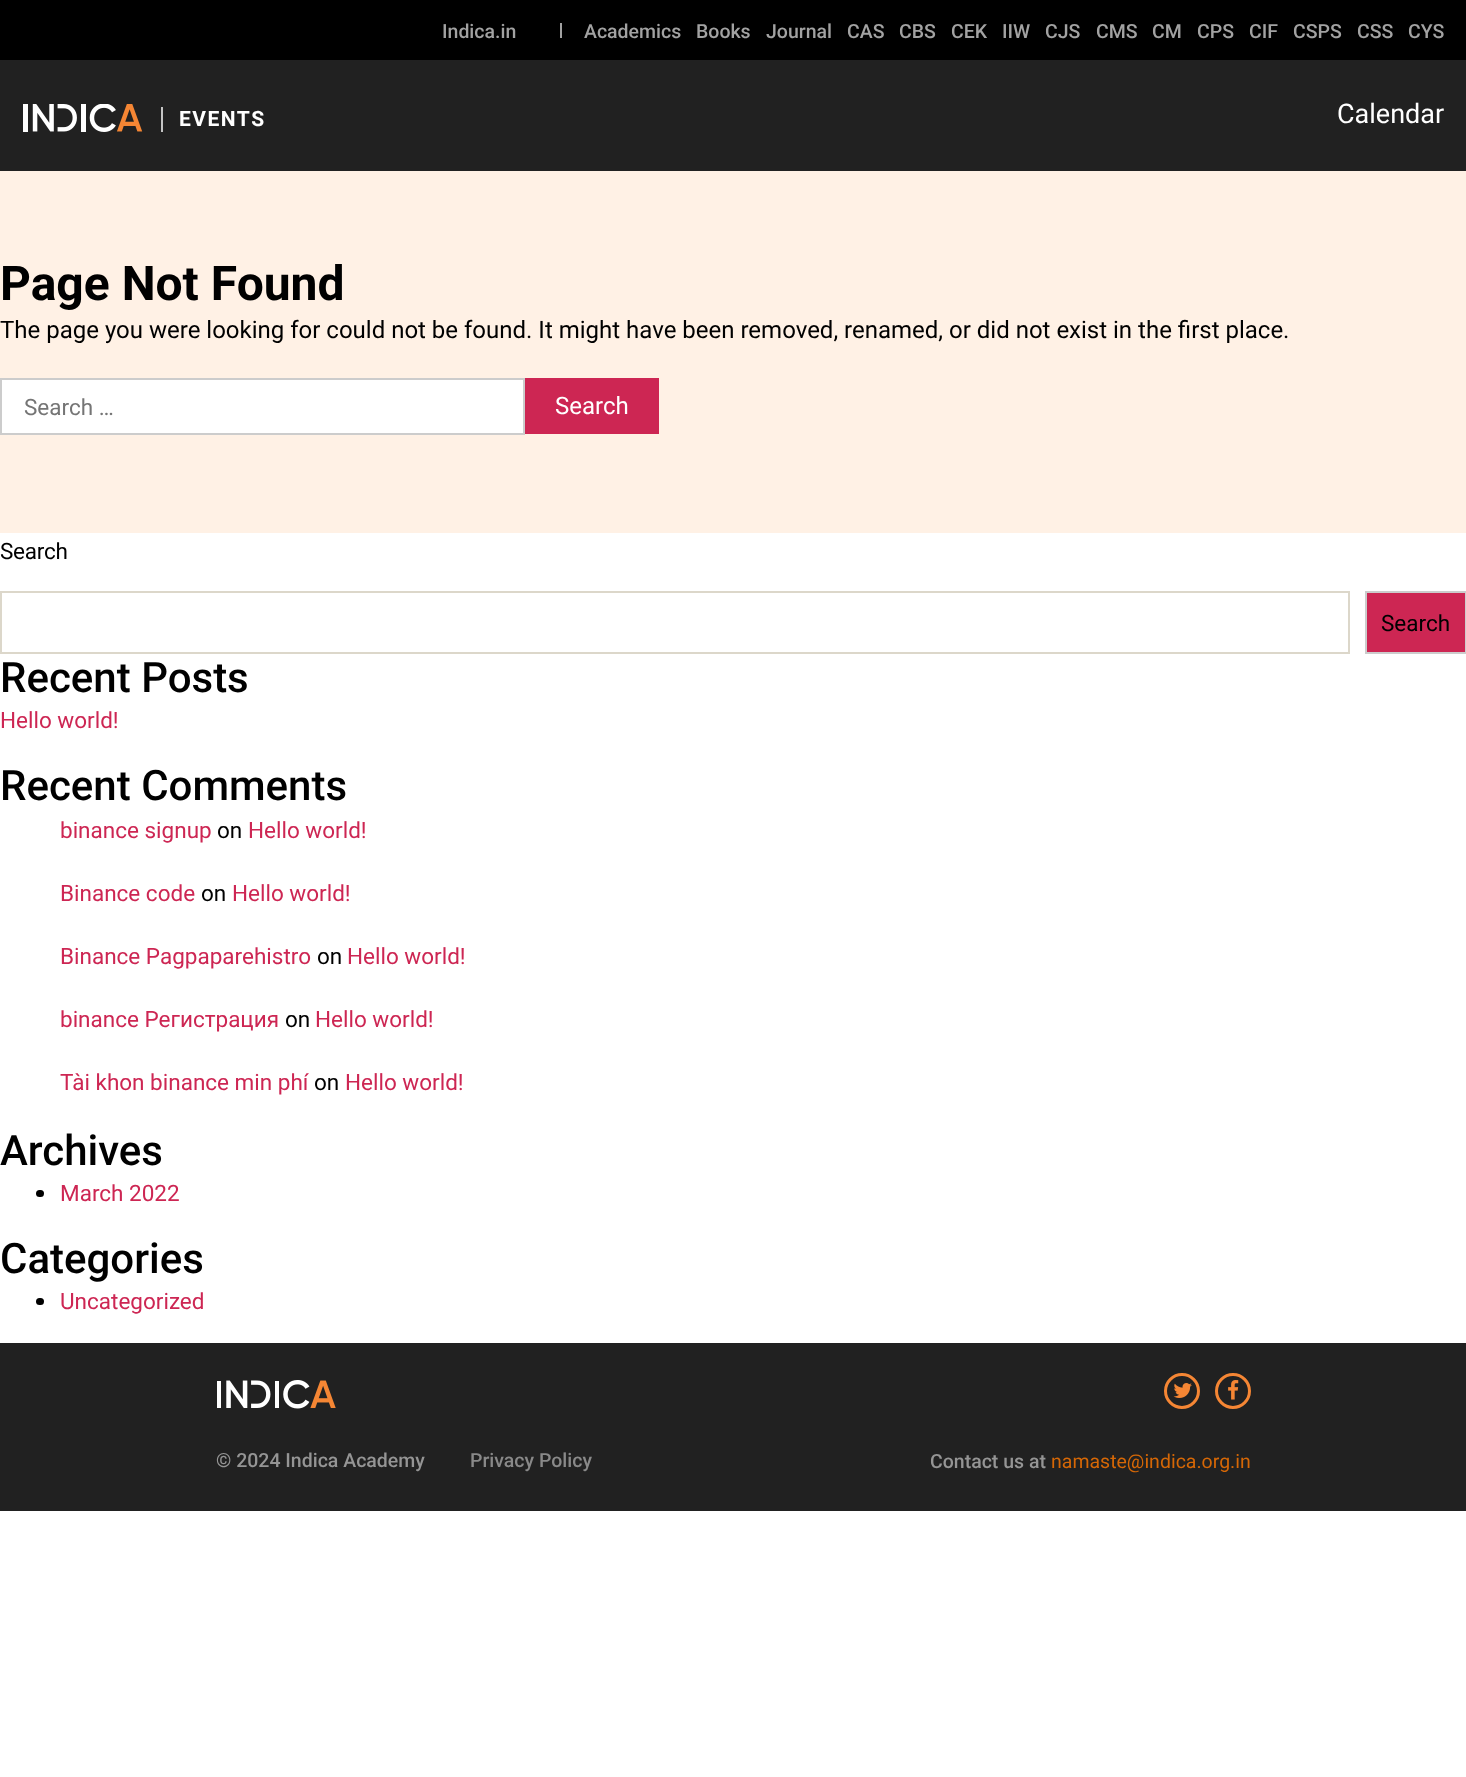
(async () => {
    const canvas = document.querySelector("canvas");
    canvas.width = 1466;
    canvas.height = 1777;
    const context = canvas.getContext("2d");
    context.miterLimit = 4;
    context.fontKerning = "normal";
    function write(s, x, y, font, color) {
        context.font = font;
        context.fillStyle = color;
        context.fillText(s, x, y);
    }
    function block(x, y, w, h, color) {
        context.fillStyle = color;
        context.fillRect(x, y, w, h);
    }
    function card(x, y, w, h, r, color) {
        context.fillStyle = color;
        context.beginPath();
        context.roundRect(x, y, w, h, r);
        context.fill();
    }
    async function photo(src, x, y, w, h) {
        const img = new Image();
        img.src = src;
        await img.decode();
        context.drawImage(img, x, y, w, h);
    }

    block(0, 0, 1466, 1777, "rgb(255, 255, 255)");
    block(0, 0, 1466, 60, "rgb(0, 0, 0)");
    write("Indica.in", 442, 38, "500 19.5px Roboto", "rgb(162, 162, 162)");
    block(560, 23, 2, 15, "rgb(162, 162, 162)");
    write("Academics", 584, 38, "500 19.5px Roboto", "rgb(162, 162, 162)");
    write("Books", 696, 38, "500 19.5px Roboto", "rgb(162, 162, 162)");
    write("Journal", 766, 38, "500 19.5px Roboto", "rgb(162, 162, 162)");
    write("CAS", 847, 38, "500 19.5px Roboto", "rgb(162, 162, 162)");
    write("CBS", 899, 38, "500 19.5px Roboto", "rgb(162, 162, 162)");
    write("CEK", 951, 38, "500 19.5px Roboto", "rgb(162, 162, 162)");
    write("IIW", 1002, 38, "500 19.5px Roboto", "rgb(162, 162, 162)");
    write("CJS", 1045, 38, "500 19.5px Roboto", "rgb(162, 162, 162)");
    write("CMS", 1096, 38, "500 19.5px Roboto", "rgb(162, 162, 162)");
    write("CM", 1152, 38, "500 19.5px Roboto", "rgb(162, 162, 162)");
    write("CPS", 1197, 38, "500 19.5px Roboto", "rgb(162, 162, 162)");
    write("CIF", 1249, 38, "500 19.5px Roboto", "rgb(162, 162, 162)");
    write("CSPS", 1293, 38, "500 19.5px Roboto", "rgb(162, 162, 162)");
    write("CSS", 1357, 38, "500 19.5px Roboto", "rgb(162, 162, 162)");
    write("CYS", 1408, 38, "500 19.5px Roboto", "rgb(162, 162, 162)");
    block(0, 60, 1466, 111, "rgb(33, 33, 33)");
    await photo("media/1.png", 23, 104, 120, 28);
    block(161, 107, 2, 25, "rgb(196, 196, 196)");
    context.letterSpacing = "1.5px";
    write("EVENTS", 179, 126, "bold 21px Roboto", "rgb(255, 255, 255)");
    context.letterSpacing = "0px";
    write("Calendar", 1337, 123, "27px Roboto", "rgb(255, 255, 255)");
    block(0, 171, 1466, 362, "rgb(255, 241, 229)");
    write("Page Not Found", 0, 300, "bold 48px Roboto", "rgb(0, 0, 0)");
    write("The page you were looking for could not be found. It might have been removed, renamed, or did not exist in the first place.", 0, 338, "24px Roboto", "rgb(0, 0, 0)");
    context.fillStyle = "rgb(255, 255, 255)";
    context.beginPath();
    context.rect(1, 379, 523, 55);
    context.fill();
    context.strokeStyle = "rgb(204, 204, 204)";
    context.lineWidth = 2;
    context.stroke();
    write("Search …", 24, 415, "22.5px Roboto", "rgb(117, 117, 117)");
    block(525, 378, 134, 56, "rgb(205, 38, 83)");
    write("Search", 555, 414, "24px Roboto", "rgb(255, 255, 255)");
    context.letterSpacing = "-0.25px";
    write("Search", 0, 559, "22.5px Roboto", "rgb(0, 0, 0)");
    context.strokeStyle = "rgb(220, 215, 202)";
    context.strokeRect(1, 592, 1348, 61);
    context.fillStyle = "rgb(205, 38, 83)";
    context.beginPath();
    context.rect(1366, 592, 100, 61);
    context.fill();
    context.strokeStyle = "rgb(204, 204, 204)";
    context.stroke();
    context.letterSpacing = "0px";
    write("Search", 1381, 631, "22.5px Roboto", "rgb(0, 0, 0)");
    write("Recent Posts", 0, 692, "500 42px Roboto", "rgb(0, 0, 0)");
    write("Hello world!", 0, 728, "22.5px Roboto", "rgb(205, 38, 83)");
    write("Recent Comments", 0, 800, "500 42px Roboto", "rgb(0, 0, 0)");
    write("binance signup", 60, 838, "22.5px Roboto", "rgb(205, 38, 83)");
    write("on", 217, 838, "22.5px Roboto", "rgb(0, 0, 0)");
    write("Hello world!", 248, 838, "22.5px Roboto", "rgb(205, 38, 83)");
    write("Binance code", 60, 901, "22.5px Roboto", "rgb(205, 38, 83)");
    write("on", 201, 901, "22.5px Roboto", "rgb(0, 0, 0)");
    write("Hello world!", 232, 901, "22.5px Roboto", "rgb(205, 38, 83)");
    write("Binance Pagpaparehistro", 60, 964, "22.5px Roboto", "rgb(205, 38, 83)");
    write("on", 317, 964, "22.5px Roboto", "rgb(0, 0, 0)");
    write("Hello world!", 347, 964, "22.5px Roboto", "rgb(205, 38, 83)");
    write("binance Регистрация", 60, 1027, "22.5px Roboto", "rgb(205, 38, 83)");
    write("on", 285, 1027, "22.5px Roboto", "rgb(0, 0, 0)");
    write("Hello world!", 315, 1027, "22.5px Roboto", "rgb(205, 38, 83)");
    write("Tài khon binance min phí", 60, 1090, "22.5px Roboto", "rgb(205, 38, 83)");
    write("on", 314, 1090, "22.5px Roboto", "rgb(0, 0, 0)");
    write("Hello world!", 345, 1090, "22.5px Roboto", "rgb(205, 38, 83)");
    write("Archives", 0, 1165, "500 42px Roboto", "rgb(0, 0, 0)");
    card(36, 1190, 8, 7, 3.5, "rgb(0, 0, 0)");
    write("March 2022", 60, 1201, "22.5px Roboto", "rgb(205, 38, 83)");
    write("Categories", 0, 1273, "500 42px Roboto", "rgb(0, 0, 0)");
    card(36, 1298, 8, 7, 3.5, "rgb(0, 0, 0)");
    write("Uncategorized", 60, 1309, "22.5px Roboto", "rgb(205, 38, 83)");
    block(0, 1343, 1466, 168, "rgb(33, 33, 33)");
    await photo("media/2.png", 217, 1380, 119, 29);
    context.beginPath();
    context.arc(1182, 1391, 16.5, 0, Math.PI * 2);
    context.strokeStyle = "rgb(245, 134, 52)";
    context.lineWidth = 3;
    context.stroke();
    await photo("media/3.png", 1173, 1383, 19, 15);
    context.beginPath();
    context.arc(1233, 1391, 16.5, 0, Math.PI * 2);
    context.stroke();
    await photo("media/4.png", 1228, 1380, 11, 20);
    write("© 2024 Indica Academy", 216, 1467, "500 19.5px Roboto", "rgb(149, 149, 149)");
    write("Privacy Policy", 470, 1467, "500 19.5px Roboto", "rgb(137, 137, 137)");
    write("Contact us at", 930, 1468, "500 19.5px Roboto", "rgb(149, 149, 149)");
    write("namaste@indica.org.in", 1051, 1468, "19.5px Roboto", "rgb(213, 103, 6)");
})();
